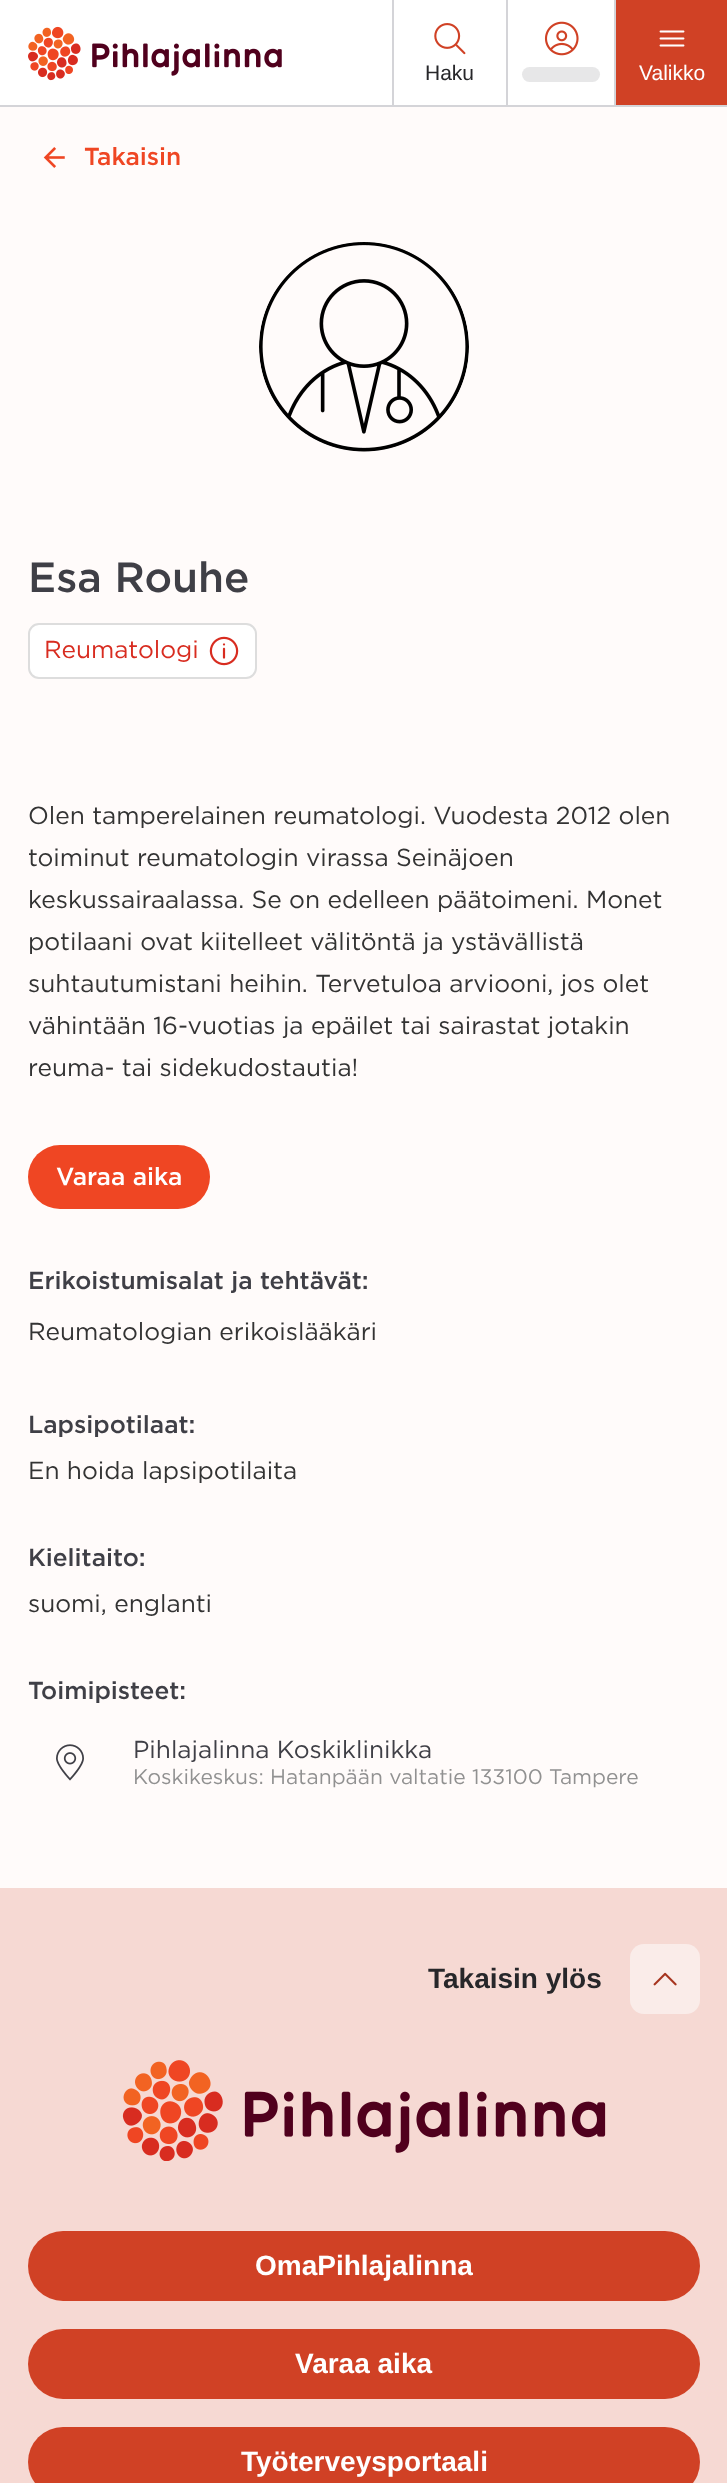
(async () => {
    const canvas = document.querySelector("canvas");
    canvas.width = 727;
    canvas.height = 2483;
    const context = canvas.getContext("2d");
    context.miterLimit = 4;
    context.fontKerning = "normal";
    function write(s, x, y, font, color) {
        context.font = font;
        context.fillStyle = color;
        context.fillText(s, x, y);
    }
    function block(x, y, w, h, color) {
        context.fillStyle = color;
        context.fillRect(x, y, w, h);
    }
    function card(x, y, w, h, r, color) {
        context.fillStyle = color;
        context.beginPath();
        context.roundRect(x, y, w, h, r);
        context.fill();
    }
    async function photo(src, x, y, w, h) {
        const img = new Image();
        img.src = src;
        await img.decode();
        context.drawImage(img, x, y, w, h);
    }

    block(0, 0, 727, 2483, "rgb(255, 251, 250)");
    block(0, 0, 614, 105, "rgb(255, 255, 255)");
    await photo("media/1.png", 28, 26, 254, 55);
    block(392, 0, 2, 105, "rgb(212, 212, 216)");
    await photo("media/2.png", 434, 23, 32, 32);
    write("Haku", 425, 80, "21px Liberation Sans", "rgb(39, 39, 42)");
    block(506, 0, 2, 105, "rgb(212, 212, 216)");
    await photo("media/3.png", 544, 21, 35, 35);
    card(522, 67, 78, 15, 7.5, "rgb(231, 231, 232)");
    block(614, 0, 2, 105, "rgb(212, 212, 216)");
    block(616, 0, 111, 105, "rgb(208, 65, 37)");
    await photo("media/4.png", 659, 30, 26, 17);
    write("Valikko", 639, 80, "21px Liberation Sans", "rgb(255, 255, 255)");
    block(0, 105, 727, 2, "rgb(212, 212, 216)");
    await photo("media/5.png", 43, 147, 22, 21);
    write("Takaisin", 84, 165, "300 24.5px 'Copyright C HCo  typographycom'", "rgb(239, 70, 35)");
    await photo("media/6.png", 259, 242, 210, 210);
    write("Esa Rouhe", 28, 592, "300 42px 'Copyright C HCo  typographycom'", "rgb(63, 63, 70)");
    context.fillStyle = "rgb(255, 255, 255)";
    context.beginPath();
    context.roundRect(29, 624, 227, 54, 10);
    context.fill();
    context.strokeStyle = "rgb(221, 221, 221)";
    context.lineWidth = 2;
    context.stroke();
    write("Reumatologi", 44, 658, "300 24.5px 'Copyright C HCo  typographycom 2'", "rgb(216, 44, 32)");
    await photo("media/7.png", 209, 636, 30, 30);
    write("Olen tamperelainen reumatologi. Vuodesta 2012 olen", 28, 824, "300 24.5px 'Copyright C HCo  typographycom 2'", "rgb(51, 51, 51)");
    write("toiminut reumatologin virassa Seinäjoen", 28, 866, "300 24.5px 'Copyright C HCo  typographycom 2'", "rgb(51, 51, 51)");
    write("keskussairaalassa. Se on edelleen päätoimeni. Monet", 28, 908, "300 24.5px 'Copyright C HCo  typographycom 2'", "rgb(51, 51, 51)");
    write("potilaani ovat kiitelleet välitöntä ja ystävällistä", 28, 950, "300 24.5px 'Copyright C HCo  typographycom 2'", "rgb(51, 51, 51)");
    write("suhtautumistani heihin. Tervetuloa arviooni, jos olet", 28, 992, "300 24.5px 'Copyright C HCo  typographycom 2'", "rgb(51, 51, 51)");
    write("vähintään 16-vuotias ja epäilet tai sairastat jotakin", 28, 1034, "300 24.5px 'Copyright C HCo  typographycom 2'", "rgb(51, 51, 51)");
    write("reuma- tai sidekudostautia!", 28, 1076, "300 24.5px 'Copyright C HCo  typographycom 2'", "rgb(51, 51, 51)");
    card(28, 1145, 182, 64, 32, "rgb(239, 70, 35)");
    write("Varaa aika", 56, 1185, "300 24.5px 'Copyright C HCo  typographycom'", "rgb(255, 255, 255)");
    write("Erikoistumisalat ja tehtävät:", 28, 1289, "300 24.5px 'Copyright C HCo  typographycom'", "rgb(63, 63, 70)");
    write("Reumatologian erikoislääkäri", 28, 1340, "300 24.5px 'Copyright C HCo  typographycom 2'", "rgb(51, 51, 51)");
    write("Lapsipotilaat:", 28, 1433, "300 24.5px 'Copyright C HCo  typographycom'", "rgb(63, 63, 70)");
    write("En hoida lapsipotilaita", 28, 1479, "300 24.5px 'Copyright C HCo  typographycom 2'", "rgb(51, 51, 51)");
    write("Kielitaito:", 28, 1566, "300 24.5px 'Copyright C HCo  typographycom'", "rgb(63, 63, 70)");
    write("suomi, englanti", 28, 1612, "300 24.5px 'Copyright C HCo  typographycom 2'", "rgb(51, 51, 51)");
    write("Toimipisteet:", 28, 1699, "300 24.5px 'Copyright C HCo  typographycom'", "rgb(63, 63, 70)");
    await photo("media/8.png", 56, 1744, 28, 37);
    write("Pihlajalinna Koskiklinikka", 133, 1758, "300 24.5px 'Copyright C HCo  typographycom 2'", "rgb(63, 63, 70)");
    write("Koskikeskus: Hatanpään valtatie 133100 Tampere", 133, 1784, "300 21px 'Copyright C HCo  typographycom 2'", "rgb(145, 145, 145)");
    block(0, 1888, 727, 595, "rgb(246, 217, 211)");
    write("Takaisin ylös", 428, 1988, "bold 28px Liberation Sans", "rgb(39, 39, 42)");
    card(630, 1944, 70, 70, 14, "rgb(250, 236, 233)");
    await photo("media/9.png", 653, 1972, 24, 14);
    await photo("media/10.png", 122, 2060, 484, 101);
    card(28, 2231, 672, 70, 35, "rgb(208, 65, 37)");
    write("OmaPihlajalinna", 255, 2275, "bold 28px Liberation Sans", "rgb(255, 255, 255)");
    card(28, 2329, 672, 70, 35, "rgb(208, 65, 37)");
    write("Varaa aika", 295, 2373, "bold 28px Liberation Sans", "rgb(255, 255, 255)");
    card(28, 2427, 672, 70, 35, "rgb(208, 65, 37)");
    write("Työterveysportaali", 241, 2471, "bold 28px Liberation Sans", "rgb(255, 255, 255)");
})();
